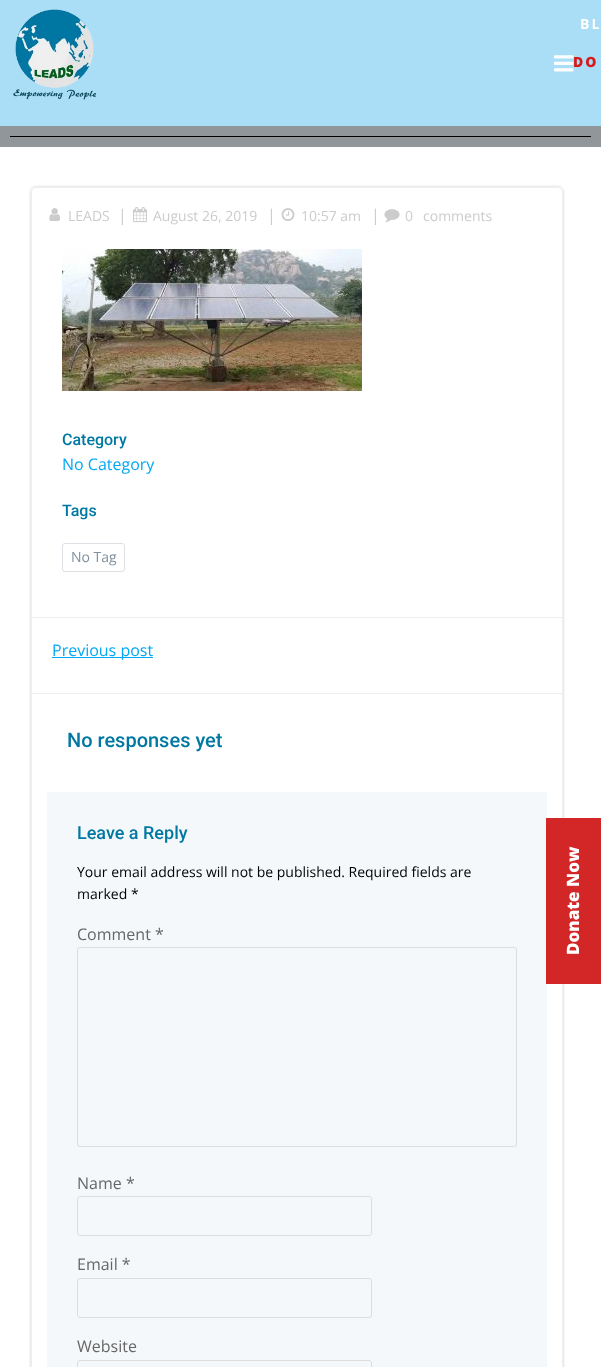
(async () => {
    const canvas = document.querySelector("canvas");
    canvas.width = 601;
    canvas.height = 1367;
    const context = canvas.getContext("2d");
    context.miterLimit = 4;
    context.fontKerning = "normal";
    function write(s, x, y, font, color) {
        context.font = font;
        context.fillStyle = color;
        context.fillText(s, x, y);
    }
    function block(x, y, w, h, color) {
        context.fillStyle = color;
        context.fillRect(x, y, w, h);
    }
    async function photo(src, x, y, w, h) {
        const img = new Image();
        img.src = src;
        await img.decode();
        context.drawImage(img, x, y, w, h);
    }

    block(0, 0, 601, 1367, "rgb(255, 255, 255)");
    block(0, 0, 601, 126, "rgb(169, 222, 246)");
    await photo("media/1.png", 13, 9, 83, 91);
    context.letterSpacing = "2px";
    write("BL", 580, 29, "bold 14px Open Sans", "rgb(255, 255, 255)");
    write("DO", 573, 67, "800 14px Open Sans", "rgb(212, 28, 28)");
    block(0, 126, 601, 21, "rgb(144, 150, 153)");
    block(10, 136, 581, 1, "rgb(0, 0, 0)");
    await photo("media/2.png", 554, 55, 20, 17);
    context.save();
    context.beginPath();
    context.moveTo(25, 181);
    context.lineTo(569, 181);
    context.lineTo(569, 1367);
    context.lineTo(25, 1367);
    context.closePath();
    context.moveTo(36, 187);
    context.lineTo(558, 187);
    context.bezierCurveTo(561, 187, 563, 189, 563, 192);
    context.lineTo(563, 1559);
    context.bezierCurveTo(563, 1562, 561, 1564, 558, 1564);
    context.lineTo(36, 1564);
    context.bezierCurveTo(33, 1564, 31, 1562, 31, 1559);
    context.lineTo(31, 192);
    context.bezierCurveTo(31, 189, 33, 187, 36, 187);
    context.closePath();
    context.clip("evenodd");
    context.fillStyle = "rgba(0, 0, 0, 0.2)";
    context.filter = "blur(1.5px)";
    context.beginPath();
    context.roundRect(31, 187, 532, 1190, 5);
    context.fill();
    context.filter = "none";
    context.restore();
    context.beginPath();
    context.roundRect(31.5, 187.5, 531, 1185, 4.5);
    context.strokeStyle = "rgb(238, 238, 238)";
    context.stroke();
    await photo("media/3.png", 49, 208, 11, 13);
    context.letterSpacing = "0px";
    write("LEADS", 68, 221, "14px Open Sans", "rgb(204, 204, 204)");
    write("|", 118, 221, "16px Open Sans", "rgb(204, 204, 204)");
    await photo("media/4.png", 133, 207, 14, 16);
    write("August 26, 2019", 153, 221, "14px Open Sans", "rgb(204, 204, 204)");
    write("|", 267, 221, "16px Open Sans", "rgb(204, 204, 204)");
    await photo("media/5.png", 281, 208, 14, 13);
    write("10:57 am", 301, 221, "14px Open Sans", "rgb(204, 204, 204)");
    write("|", 371, 221, "16px Open Sans", "rgb(204, 204, 204)");
    await photo("media/6.png", 384, 209, 16, 13);
    write("0", 405, 221, "14px Open Sans", "rgb(204, 204, 204)");
    write("comments", 423, 221, "14px Open Sans", "rgb(204, 204, 204)");
    await photo("media/7.png", 62, 249, 300, 142);
    write("Category", 62, 445, "500 16px Roboto", "rgb(0, 120, 161)");
    write("No Category", 62, 470, "16px Open Sans", "rgb(3, 169, 244)");
    write("Tags", 62, 516, "500 16px Roboto", "rgb(0, 120, 161)");
    context.beginPath();
    context.roundRect(62.5, 543.5, 62, 28, 2.5);
    context.strokeStyle = "rgb(221, 225, 230)";
    context.stroke();
    write("No Tag", 71, 562, "14px Open Sans", "rgb(127, 144, 160)");
    block(32, 617, 530, 1, "rgb(238, 238, 238)");
    block(32, 693, 530, 1, "rgb(238, 238, 238)");
    block(52, 657, 101, 1, "rgb(3, 169, 244)");
    write("Previous post", 52, 656, "16px Open Sans", "rgb(3, 169, 244)");
    write("No responses yet", 67, 747, "500 20px Roboto", "rgb(0, 120, 161)");
    block(47, 792, 500, 575, "rgb(245, 248, 251)");
    write("Leave a Reply", 77, 839, "500 18px Roboto", "rgb(0, 120, 161)");
    write("Your email address will not be published. Required fields are", 77, 877, "14px Open Sans", "rgb(0, 0, 0)");
    write("marked *", 77, 899, "14px Open Sans", "rgb(0, 0, 0)");
    write("Comment *", 77, 940, "16px Open Sans", "rgb(102, 102, 102)");
    context.beginPath();
    context.roundRect(77.5, 947.5, 439, 199, 2.5);
    context.strokeStyle = "rgb(221, 221, 221)";
    context.stroke();
    write("Name *", 77, 1189, "16px Open Sans", "rgb(102, 102, 102)");
    context.beginPath();
    context.roundRect(77.5, 1196.5, 294, 39, 2.5);
    context.stroke();
    write("Email *", 77, 1270, "16px Open Sans", "rgb(102, 102, 102)");
    context.beginPath();
    context.roundRect(77.5, 1278.5, 294, 39, 2.5);
    context.stroke();
    write("Website", 77, 1352, "16px Open Sans", "rgb(102, 102, 102)");
    context.beginPath();
    context.roundRect(77.5, 1360.5, 294, 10, 2.5);
    context.stroke();
    block(546, 818, 55, 166, "rgb(210, 38, 39)");
    context.font = "800 17px Open Sans";
    context.fillStyle = "rgb(255, 255, 255)";
    context.save();
    context.translate(579, 955);
    context.rotate(-90 * Math.PI / 180);
    context.fillText("Donate Now", 0, 0);
    context.restore();
})();
